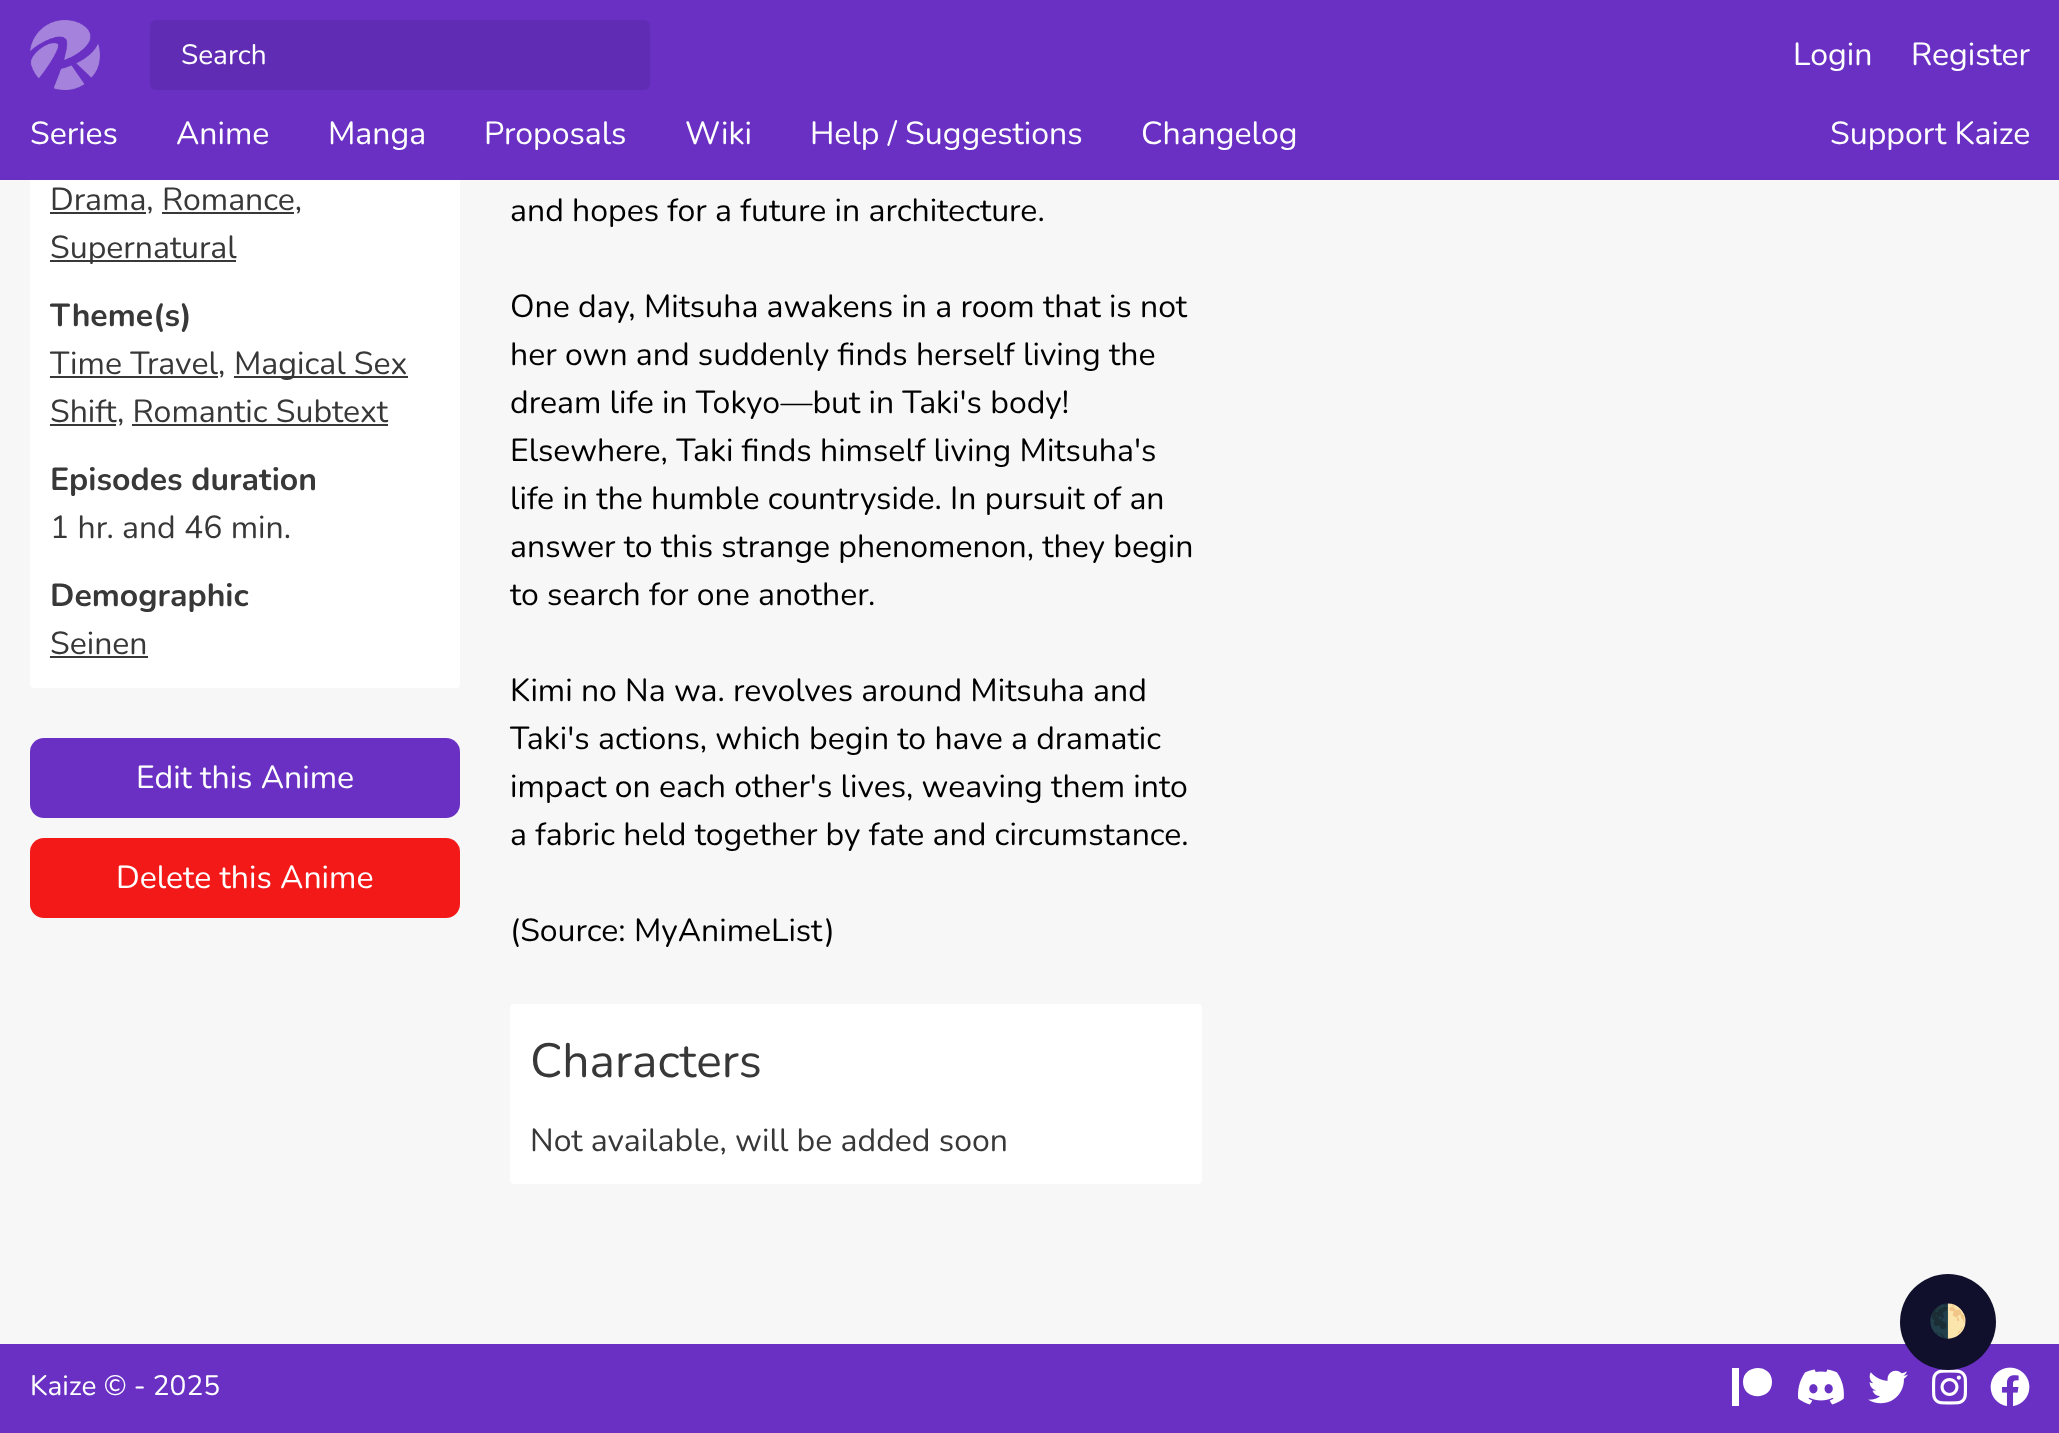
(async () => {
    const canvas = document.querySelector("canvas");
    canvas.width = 2059;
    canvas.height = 1433;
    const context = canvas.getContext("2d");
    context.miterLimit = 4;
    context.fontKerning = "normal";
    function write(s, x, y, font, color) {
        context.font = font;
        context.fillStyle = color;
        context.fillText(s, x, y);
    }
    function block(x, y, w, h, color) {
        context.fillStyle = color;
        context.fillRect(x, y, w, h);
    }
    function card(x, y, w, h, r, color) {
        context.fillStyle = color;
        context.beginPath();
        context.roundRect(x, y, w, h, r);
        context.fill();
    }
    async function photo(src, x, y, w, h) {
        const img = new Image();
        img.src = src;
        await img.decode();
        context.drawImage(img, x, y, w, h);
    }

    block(0, 0, 2059, 1433, "rgb(247, 247, 247)");
    card(30, -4, 430, 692, 4, "rgb(255, 255, 255)");
    block(0, 0, 2059, 180, "rgb(105, 48, 195)");
    await photo("media/1.png", 30, 20, 70, 70);
    card(150, 20, 500, 70, 6, "rgb(97, 44, 180)");
    write("Search", 181, 64, "28px Nunito", "rgb(255, 255, 255)");
    write("Login", 1793, 65, "32px Nunito", "rgb(255, 255, 255)");
    write("Register", 1911, 65, "32px Nunito", "rgb(255, 255, 255)");
    write("Series", 30, 144, "32px Nunito", "rgb(255, 255, 255)");
    write("Anime", 176, 144, "32px Nunito", "rgb(255, 255, 255)");
    write("Manga", 328, 144, "32px Nunito", "rgb(255, 255, 255)");
    write("Proposals", 484, 144, "32px Nunito", "rgb(255, 255, 255)");
    write("Wiki", 685, 144, "32px Nunito", "rgb(255, 255, 255)");
    write("Help / Suggestions", 810, 144, "32px Nunito", "rgb(255, 255, 255)");
    write("Changelog", 1141, 144, "32px Nunito", "rgb(255, 255, 255)");
    write("Support Kaize", 1830, 144, "32px Nunito", "rgb(255, 255, 255)");
    block(50, 212, 96, 2, "rgb(56, 56, 56)");
    write("Drama, Romance,", 50, 210, "32px Nunito", "rgb(56, 56, 56)");
    block(162, 212, 132, 2, "rgb(56, 56, 56)");
    block(50, 260, 186, 2, "rgb(56, 56, 56)");
    write("Supernatural", 50, 258, "32px Nunito", "rgb(56, 56, 56)");
    write("Theme(s)", 50, 326, "bold 32px Nunito", "rgb(56, 56, 56)");
    write("Time Travel", 50, 374, "32px Nunito", "rgb(56, 56, 56)");
    write(",", 218, 374, "32px Nunito", "rgb(56, 56, 56)");
    block(50, 376, 168, 2, "rgb(56, 56, 56)");
    block(234, 376, 174, 2, "rgb(56, 56, 56)");
    write("Magical Sex", 234, 374, "32px Nunito", "rgb(56, 56, 56)");
    write("Shift", 50, 422, "32px Nunito", "rgb(56, 56, 56)");
    write(", Romantic Subtext", 117, 422, "32px Nunito", "rgb(56, 56, 56)");
    block(50, 424, 66, 2, "rgb(56, 56, 56)");
    block(132, 424, 256, 2, "rgb(56, 56, 56)");
    write("Episodes duration", 50, 490, "bold 32px Nunito", "rgb(56, 56, 56)");
    write("1 hr. and 46 min.", 50, 538, "32px Nunito", "rgb(56, 56, 56)");
    write("Demographic", 50, 606, "bold 32px Nunito", "rgb(56, 56, 56)");
    write("Seinen", 50, 654, "32px Nunito", "rgb(56, 56, 56)");
    block(50, 656, 98, 2, "rgb(56, 56, 56)");
    card(30, 738, 430, 80, 14, "rgb(105, 48, 195)");
    write("Edit this Anime", 136, 788, "32px Nunito", "rgb(255, 255, 255)");
    card(30, 838, 430, 80, 14, "rgb(243, 25, 25)");
    write("Delete this Anime", 116, 888, "32px Nunito", "rgb(255, 255, 255)");
    write("and hopes for a future in architecture.", 510, 221, "32px Nunito", "rgb(0, 0, 0)");
    write("One day, Mitsuha awakens in a room that is not", 510, 317, "32px Nunito", "rgb(0, 0, 0)");
    write("her own and suddenly finds herself living the", 510, 365, "32px Nunito", "rgb(0, 0, 0)");
    write("dream life in Tokyo—but in Taki's body!", 510, 413, "32px Nunito", "rgb(0, 0, 0)");
    write("Elsewhere, Taki finds himself living Mitsuha's", 510, 461, "32px Nunito", "rgb(0, 0, 0)");
    write("life in the humble countryside. In pursuit of an", 510, 509, "32px Nunito", "rgb(0, 0, 0)");
    write("answer to this strange phenomenon, they begin", 510, 557, "32px Nunito", "rgb(0, 0, 0)");
    write("to search for one another.", 510, 605, "32px Nunito", "rgb(0, 0, 0)");
    write("Kimi no Na wa. revolves around Mitsuha and", 510, 701, "32px Nunito", "rgb(0, 0, 0)");
    write("Taki's actions, which begin to have a dramatic", 510, 749, "32px Nunito", "rgb(0, 0, 0)");
    write("impact on each other's lives, weaving them into", 510, 797, "32px Nunito", "rgb(0, 0, 0)");
    write("a fabric held together by fate and circumstance.", 510, 845, "32px Nunito", "rgb(0, 0, 0)");
    write("(Source: MyAnimeList)", 510, 941, "32px Nunito", "rgb(0, 0, 0)");
    card(510, 1004, 692, 180, 4, "rgb(255, 255, 255)");
    write("Characters", 530, 1077, "48px Nunito", "rgb(56, 56, 56)");
    write("Not available, will be added soon", 530, 1151, "32px Nunito", "rgb(56, 56, 56)");
    context.fillStyle = "rgb(255, 255, 255)";
    context.beginPath();
    context.arc(1950, 1324, 46, 0, Math.PI * 2);
    context.fill();
    block(0, 1344, 2059, 89, "rgb(105, 48, 195)");
    await photo("media/4.png", 1932, 1369, 35, 36);
    await photo("media/5.png", 1990, 1367, 40, 40);
    context.fillStyle = "rgb(16, 15, 44)";
    context.beginPath();
    context.arc(1948, 1322, 48, 0, Math.PI * 2);
    context.fill();
    write("🌓", 1928, 1332, "32px Noto Color Emoji", "rgb(0, 0, 0)");
    write("Kaize © - 2025", 30, 1395, "28px Nunito", "rgb(255, 255, 255)");
    context.beginPath();
    context.moveTo(1772, 1382);
    context.bezierCurveTo(1772, 1401, 1743, 1401, 1743, 1382);
    context.bezierCurveTo(1743, 1364, 1772, 1363, 1772, 1382);
    context.closePath();
    context.moveTo(1732, 1406);
    context.lineTo(1739, 1406);
    context.lineTo(1739, 1368);
    context.lineTo(1732, 1368);
    context.closePath();
    context.fill();
    await photo("media/2.png", 1798, 1369, 46, 36);
    await photo("media/3.png", 1868, 1370, 40, 34);
})();
